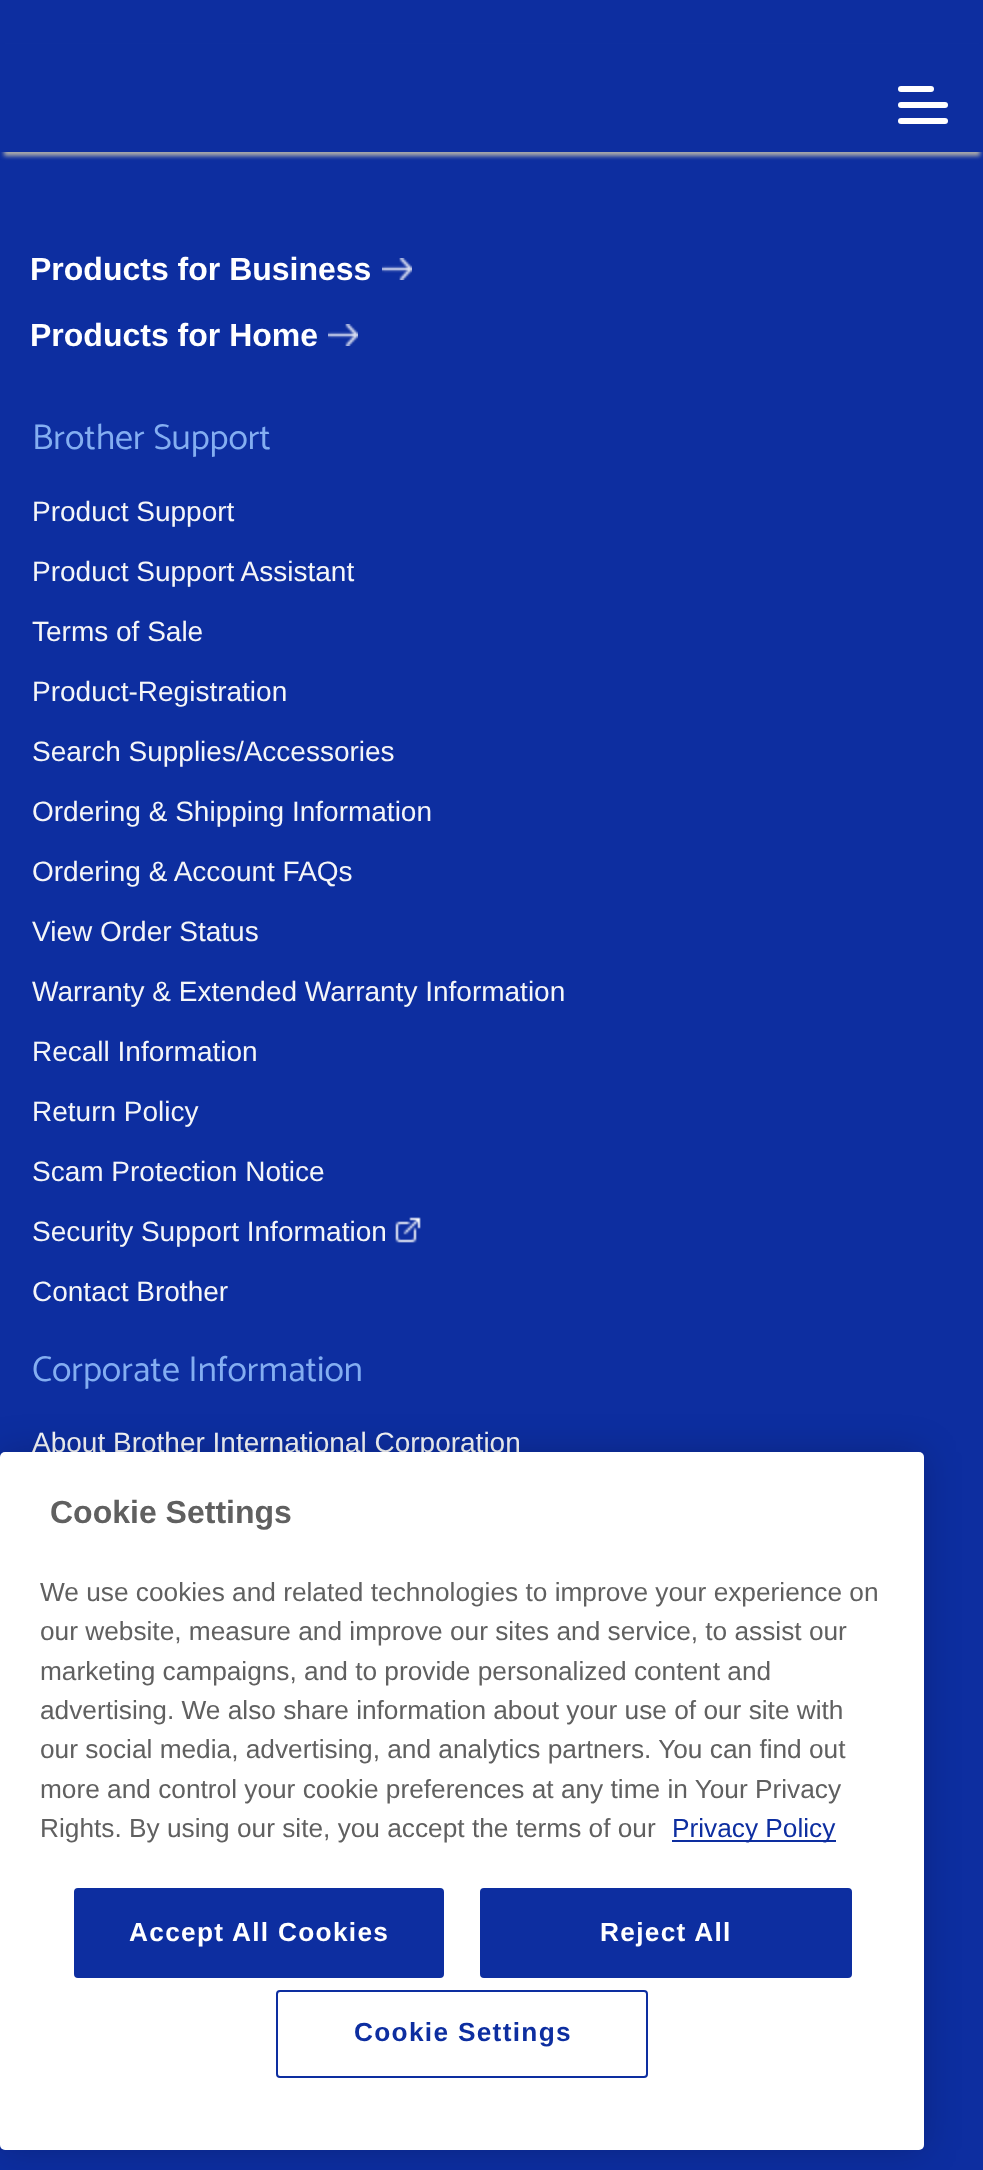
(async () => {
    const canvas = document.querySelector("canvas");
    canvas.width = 983;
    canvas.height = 2170;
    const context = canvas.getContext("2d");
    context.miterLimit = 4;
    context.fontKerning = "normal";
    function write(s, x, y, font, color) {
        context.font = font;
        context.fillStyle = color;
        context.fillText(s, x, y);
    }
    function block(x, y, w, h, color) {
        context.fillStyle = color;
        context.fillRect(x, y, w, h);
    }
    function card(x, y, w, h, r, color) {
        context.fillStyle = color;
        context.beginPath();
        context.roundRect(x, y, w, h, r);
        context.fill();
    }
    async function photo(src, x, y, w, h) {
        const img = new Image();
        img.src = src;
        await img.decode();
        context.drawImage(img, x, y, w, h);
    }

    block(0, 0, 983, 2170, "rgb(13, 46, 160)");
    context.fillStyle = "rgb(170, 170, 170)";
    context.filter = "blur(2px)";
    context.beginPath();
    context.rect(4, 48, 976, 108);
    context.fill();
    context.filter = "none";
    block(0, 44, 983, 108, "rgb(13, 46, 160)");
    card(898, 102, 50, 6, 3, "rgb(255, 255, 255)");
    card(898, 86, 36, 6, 3, "rgb(255, 255, 255)");
    card(898, 118, 50, 6, 3, "rgb(255, 255, 255)");
    write("Products for Business", 30, 280, "bold 32px Liberation Sans", "rgb(255, 255, 255)");
    await photo("media/1.png", 382, 258, 30, 22);
    write("Products for Home", 30, 346, "bold 32px Liberation Sans", "rgb(255, 255, 255)");
    await photo("media/1.png", 328, 324, 30, 22);
    write("Brother Support", 32, 449, "36px Catamaran", "rgb(132, 174, 241)");
    write("Product Support", 32, 521, "28px Liberation Sans", "rgb(245, 246, 248)");
    write("Product Support Assistant", 32, 581, "28px Liberation Sans", "rgb(245, 246, 248)");
    write("Terms of Sale", 32, 641, "28px Liberation Sans", "rgb(245, 246, 248)");
    write("Product-Registration", 32, 701, "28px Liberation Sans", "rgb(245, 246, 248)");
    write("Search Supplies/Accessories", 32, 761, "28px Liberation Sans", "rgb(245, 246, 248)");
    write("Ordering & Shipping Information", 32, 821, "28px Liberation Sans", "rgb(245, 246, 248)");
    write("Ordering & Account FAQs", 32, 881, "28px Liberation Sans", "rgb(245, 246, 248)");
    write("View Order Status", 32, 941, "28px Liberation Sans", "rgb(245, 246, 248)");
    write("Warranty & Extended Warranty Information", 32, 1001, "28px Liberation Sans", "rgb(245, 246, 248)");
    write("Recall Information", 32, 1061, "28px Liberation Sans", "rgb(245, 246, 248)");
    write("Return Policy", 32, 1121, "28px Liberation Sans", "rgb(245, 246, 248)");
    write("Scam Protection Notice", 32, 1181, "28px Liberation Sans", "rgb(245, 246, 248)");
    write("Security Support Information", 32, 1241, "28px Liberation Sans", "rgb(245, 246, 248)");
    await photo("media/2.png", 395, 1217, 26, 26);
    write("Contact Brother", 32, 1301, "28px Liberation Sans", "rgb(245, 246, 248)");
    write("Corporate Information", 32, 1381, "36px Catamaran", "rgb(132, 174, 241)");
    write("About Brother International Corporation", 32, 1452, "28px Liberation Sans", "rgb(245, 246, 248)");
    context.fillStyle = "rgba(0, 0, 0, 0.2)";
    context.filter = "blur(18px)";
    context.beginPath();
    context.roundRect(0, 1452, 924, 698, 5);
    context.fill();
    context.filter = "none";
    card(0, 1452, 924, 698, 5, "rgb(255, 255, 255)");
    write("Cookie Settings", 50, 1523, "bold 32px Liberation Sans", "rgb(96, 96, 96)");
    write("We use cookies and related technologies to improve your experience on", 40, 1601, "26.25px Liberation Sans", "rgb(96, 96, 96)");
    write("our website, measure and improve our sites and service, to assist our", 40, 1640, "26.25px Liberation Sans", "rgb(96, 96, 96)");
    write("marketing campaigns, and to provide personalized content and", 40, 1680, "26.25px Liberation Sans", "rgb(96, 96, 96)");
    write("advertising. We also share information about your use of our site with", 40, 1719, "26.25px Liberation Sans", "rgb(96, 96, 96)");
    write("our social media, advertising, and analytics partners. You can find out", 40, 1758, "26.25px Liberation Sans", "rgb(96, 96, 96)");
    write("more and control your cookie preferences at any time in Your Privacy", 40, 1798, "26.25px Liberation Sans", "rgb(96, 96, 96)");
    write("Rights. By using our site, you accept the terms of our", 40, 1837, "26.25px Liberation Sans", "rgb(96, 96, 96)");
    block(672, 1840, 164, 2, "rgb(13, 46, 160)");
    write("Privacy Policy", 672, 1837, "26.25px Liberation Sans", "rgb(13, 46, 160)");
    context.beginPath();
    context.roundRect(75, 1889, 368, 88, 3);
    context.fill();
    context.strokeStyle = "rgb(13, 46, 160)";
    context.lineWidth = 2;
    context.stroke();
    context.letterSpacing = "1.3px";
    write("Accept All Cookies", 129, 1941, "bold 26.25px Liberation Sans", "rgb(255, 255, 255)");
    context.fillStyle = "rgb(13, 46, 160)";
    context.beginPath();
    context.roundRect(481, 1889, 370, 88, 3);
    context.fill();
    context.stroke();
    write("Reject All", 600, 1941, "bold 26.25px Liberation Sans", "rgb(255, 255, 255)");
    context.beginPath();
    context.roundRect(277, 1991, 370, 86, 3);
    context.stroke();
    write("Cookie Settings", 354, 2041, "bold 26.25px Liberation Sans", "rgb(13, 46, 160)");
})();
